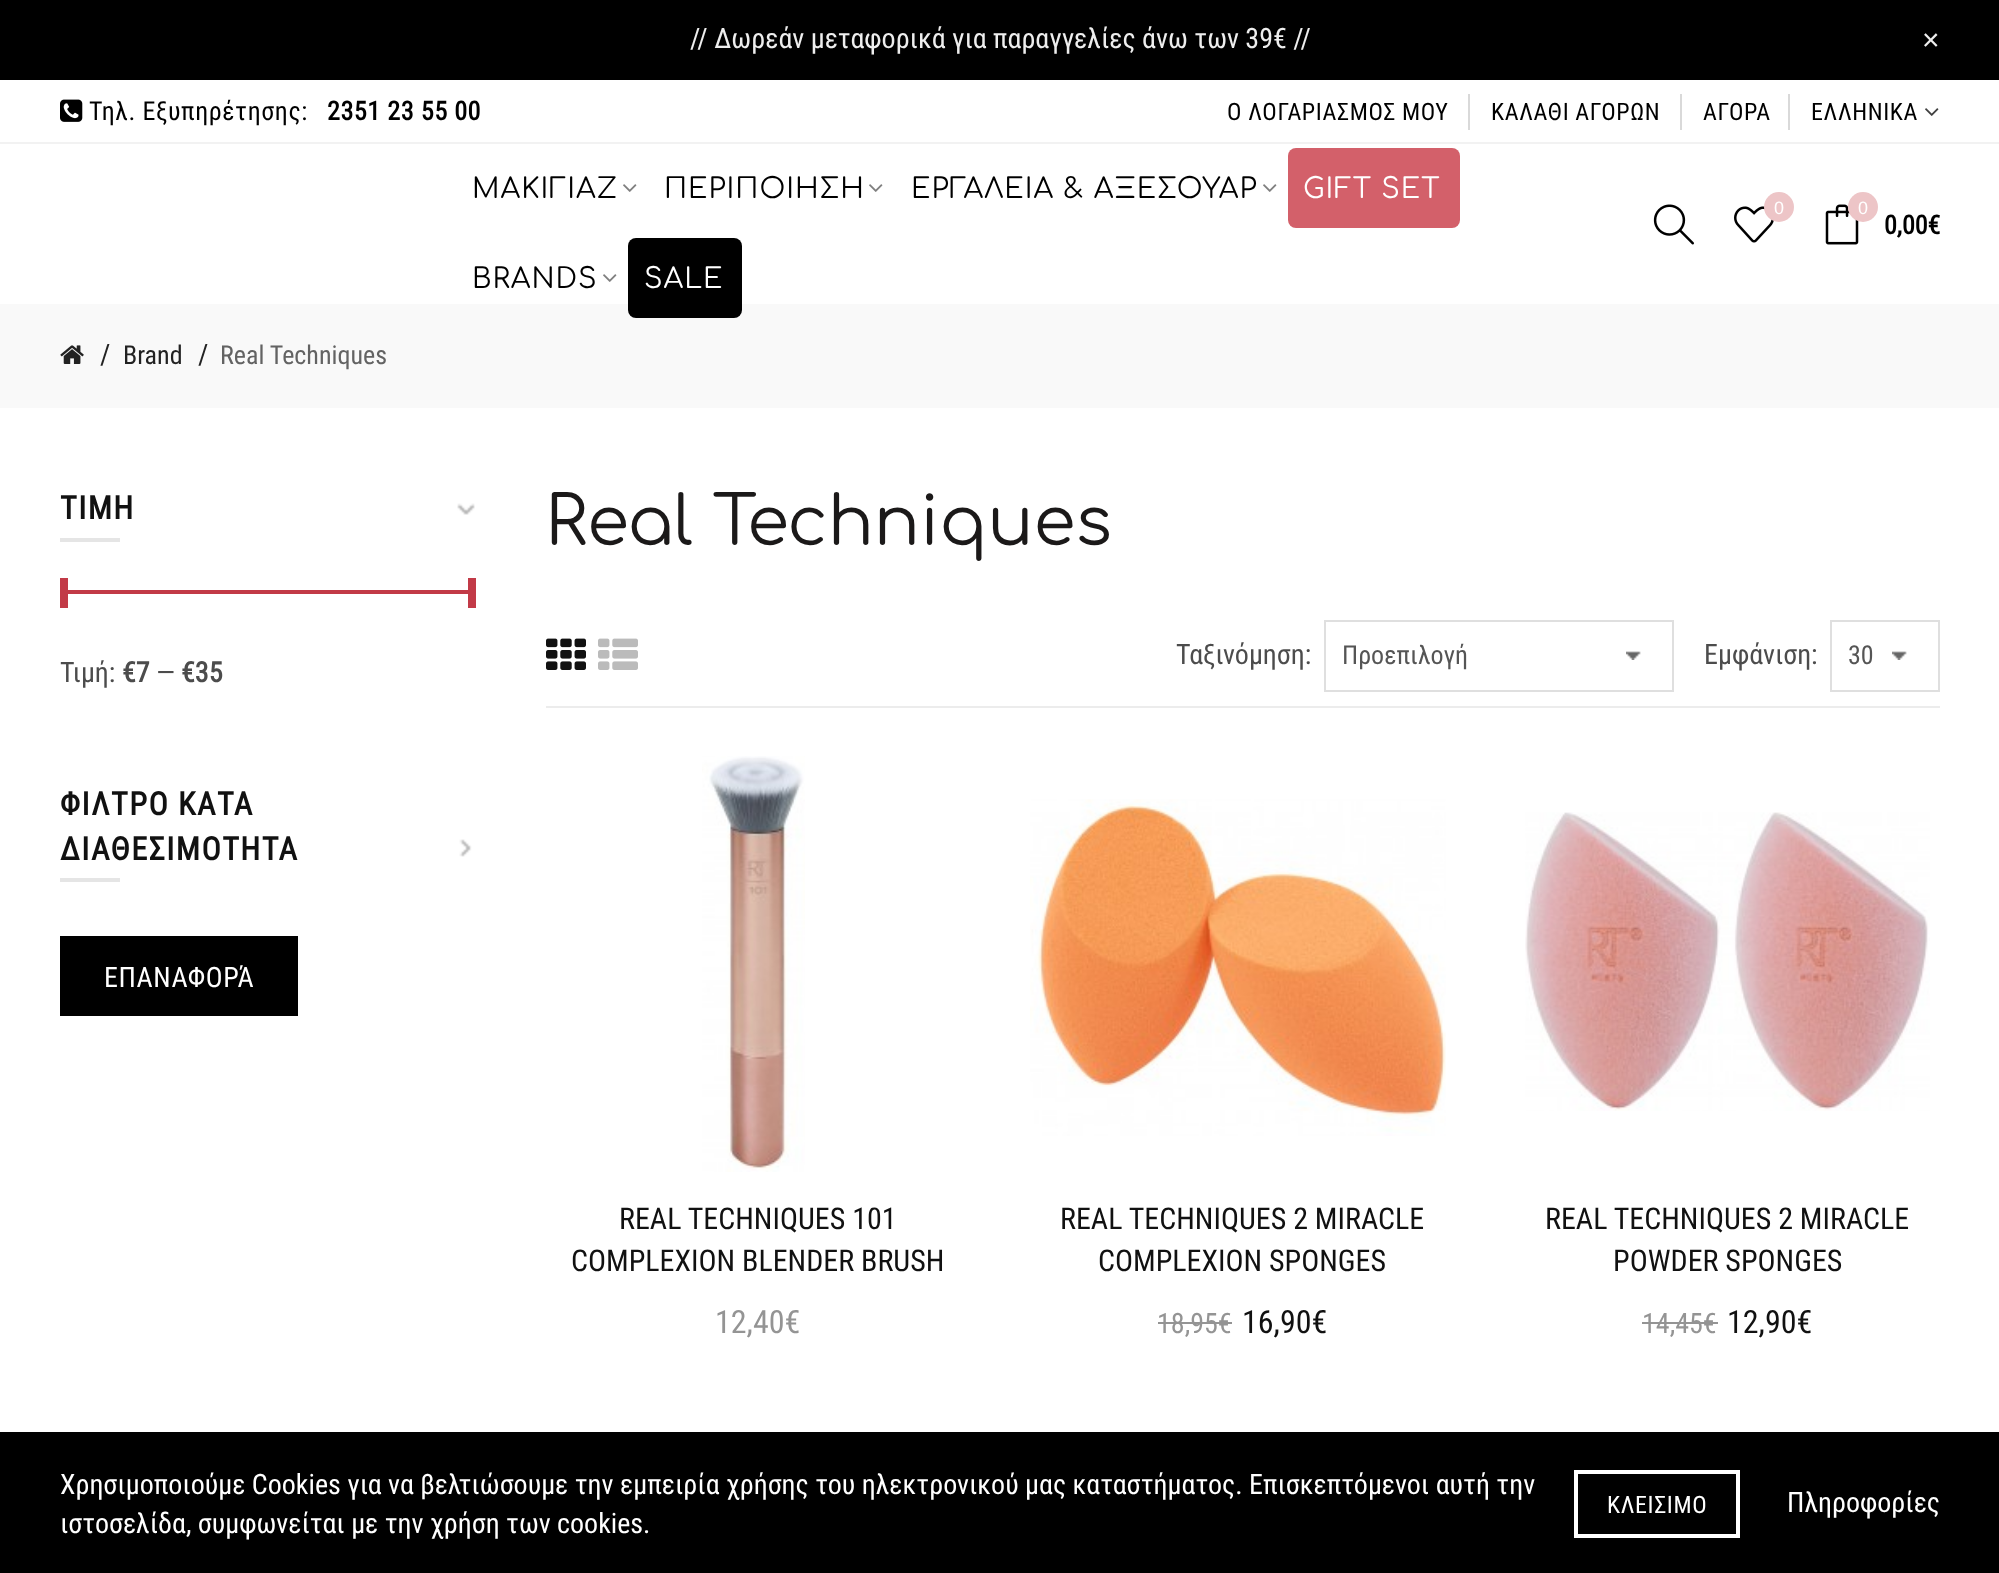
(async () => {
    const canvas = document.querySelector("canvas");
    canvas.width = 1999;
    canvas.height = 1573;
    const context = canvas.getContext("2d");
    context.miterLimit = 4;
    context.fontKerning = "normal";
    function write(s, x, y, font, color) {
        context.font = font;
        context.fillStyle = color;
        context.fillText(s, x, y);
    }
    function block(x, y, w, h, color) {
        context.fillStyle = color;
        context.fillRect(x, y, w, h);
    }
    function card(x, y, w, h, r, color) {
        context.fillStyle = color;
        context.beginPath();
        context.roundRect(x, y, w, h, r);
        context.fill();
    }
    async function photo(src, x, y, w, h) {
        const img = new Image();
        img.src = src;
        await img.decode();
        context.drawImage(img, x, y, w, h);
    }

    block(0, 0, 1999, 1573, "rgb(255, 255, 255)");
    block(0, 0, 1999, 80, "rgb(0, 0, 0)");
    write("// Δωρεάν μεταφορικά για παραγγελίες άνω των 39€ //", 690, 48, "28px Roboto Condensed", "rgb(238, 238, 238)");
    write("×", 1922, 50, "30px Liberation Sans", "rgb(238, 238, 238)");
    await photo("media/1.png", 60, 99, 23, 23);
    context.letterSpacing = "0.6px";
    write("Τηλ. Εξυπηρέτησης:", 89, 120, "26px Roboto Condensed", "rgb(0, 0, 0)");
    write("2351 23 55 00", 327, 120, "bold 26px Roboto Condensed", "rgb(0, 0, 0)");
    write("Ο ΛΟΓΑΡΙΑΣΜΟΣ ΜΟΥ", 1227, 120, "24px Roboto Condensed", "rgb(0, 0, 0)");
    block(1468, 94, 2, 36, "rgb(217, 217, 217)");
    write("ΚΑΛΑΘΙ ΑΓΟΡΩΝ", 1491, 120, "24px Roboto Condensed", "rgb(0, 0, 0)");
    block(1680, 94, 2, 36, "rgb(217, 217, 217)");
    write("ΑΓΟΡΑ", 1703, 120, "24px Roboto Condensed", "rgb(0, 0, 0)");
    block(1788, 94, 2, 36, "rgb(217, 217, 217)");
    write("ΕΛΛΗΝΙΚΑ", 1811, 120, "24px Roboto Condensed", "rgb(0, 0, 0)");
    await photo("media/2.png", 1925, 108, 14, 8);
    block(0, 142, 1999, 2, "rgb(242, 242, 242)");
    context.letterSpacing = "1px";
    write("ΜΑΚΙΓΙΑΖ", 472, 198, "28px Comfortaa", "rgb(0, 0, 0)");
    await photo("media/3.png", 623, 184, 14, 8);
    write("ΠΕΡΙΠΟΙΗΣΗ", 664, 198, "28px Comfortaa", "rgb(0, 0, 0)");
    await photo("media/3.png", 869, 184, 14, 8);
    write("ΕΡΓΑΛΕΙΑ & ΑΞΕΣΟΥΑΡ", 911, 198, "28px Comfortaa", "rgb(0, 0, 0)");
    await photo("media/3.png", 1263, 184, 14, 8);
    card(1288, 148, 172, 80, 8, "rgb(211, 96, 106)");
    write("GIFT SET", 1303, 198, "28px Comfortaa", "rgb(255, 255, 255)");
    write("BRANDS", 472, 288, "28px Comfortaa", "rgb(0, 0, 0)");
    await photo("media/3.png", 603, 274, 14, 8);
    block(0, 304, 1999, 104, "rgb(249, 249, 249)");
    card(628, 238, 114, 80, 8, "rgb(0, 0, 0)");
    write("SALE", 644, 288, "28px Comfortaa", "rgb(255, 255, 255)");
    await photo("media/4.png", 1653, 204, 41, 41);
    await photo("media/5.png", 1734, 206, 40, 37);
    context.fillStyle = "rgb(237, 197, 199)";
    context.beginPath();
    context.arc(1779, 207, 15, 0, Math.PI * 2);
    context.fill();
    context.letterSpacing = "0px";
    write("0", 1774, 214, "18px Liberation Sans", "rgb(255, 255, 255)");
    await photo("media/6.png", 1825, 204, 34, 41);
    context.fillStyle = "rgb(237, 197, 199)";
    context.beginPath();
    context.arc(1863, 207, 15, 0, Math.PI * 2);
    context.fill();
    write("0", 1858, 214, "18px Liberation Sans", "rgb(255, 255, 255)");
    write("0,00€", 1884, 234, "bold 26px Roboto Condensed", "rgb(0, 0, 0)");
    await photo("media/7.png", 60, 345, 24, 19);
    write("/", 100, 364, "28px Roboto Condensed", "rgb(34, 34, 34)");
    write("Brand", 123, 364, "26px Roboto Condensed", "rgb(34, 34, 34)");
    write("/", 198, 364, "28px Roboto Condensed", "rgb(34, 34, 34)");
    write("Real Techniques", 220, 364, "26px Roboto Condensed", "rgb(99, 99, 99)");
    context.letterSpacing = "1.5px";
    write("ΤΙΜΗ", 60, 519, "bold 32px Roboto Condensed", "rgb(17, 17, 17)");
    await photo("media/8.png", 457, 503, 18, 12);
    block(60, 538, 60, 4, "rgb(229, 229, 229)");
    block(64, 590, 408, 4, "rgb(194, 58, 71)");
    block(60, 578, 8, 30, "rgb(194, 58, 71)");
    block(468, 578, 8, 30, "rgb(194, 58, 71)");
    context.letterSpacing = "0px";
    write("Τιμή:", 60, 682, "28px Roboto Condensed", "rgb(76, 76, 76)");
    write("€7", 122, 682, "bold 28px Roboto Condensed", "rgb(76, 76, 76)");
    write("—", 156, 682, "28px Roboto Condensed", "rgb(76, 76, 76)");
    write("€35", 181, 682, "bold 28px Roboto Condensed", "rgb(76, 76, 76)");
    context.letterSpacing = "1.5px";
    write("ΦΙΛΤΡΟ ΚΑΤΑ", 60, 815, "bold 32px Roboto Condensed", "rgb(17, 17, 17)");
    write("ΔΙΑΘΕΣΙΜΟΤΗΤΑ", 60, 860, "bold 32px Roboto Condensed", "rgb(17, 17, 17)");
    await photo("media/9.png", 459, 839, 13, 18);
    block(60, 878, 60, 4, "rgb(229, 229, 229)");
    block(60, 936, 238, 80, "rgb(0, 0, 0)");
    context.letterSpacing = "0.6px";
    write("ΕΠΑΝΑΦΟΡΆ", 104, 987, "28px Roboto Condensed", "rgb(255, 255, 255)");
    context.letterSpacing = "0px";
    write("Real Techniques", 545, 545, "68px Comfortaa", "rgb(27, 25, 25)");
    block(546, 706, 1394, 2, "rgb(236, 236, 236)");
    await photo("media/10.png", 546, 638, 40, 32);
    await photo("media/11.png", 598, 638, 40, 32);
    write("Ταξινόμηση:", 1176, 664, "28px Roboto Condensed", "rgb(76, 76, 76)");
    await photo("media/12.png", 1626, 651, 15, 9);
    context.strokeStyle = "rgb(223, 223, 223)";
    context.lineWidth = 2;
    context.strokeRect(1325, 621, 348, 70);
    write("Προεπιλογή", 1342, 664, "26px Roboto Condensed", "rgb(85, 85, 85)");
    write("Εμφάνιση:", 1704, 664, "28px Roboto Condensed", "rgb(76, 76, 76)");
    await photo("media/12.png", 1892, 651, 15, 9);
    context.strokeRect(1831, 621, 108, 70);
    write("30", 1848, 664, "26px Roboto Condensed", "rgb(85, 85, 85)");
    await photo("media/13.png", 702, 756, 103, 416);
    write("REAL TECHNIQUES 101", 619, 1229, "30px Roboto Condensed", "rgb(17, 17, 17)");
    write("COMPLEXION BLENDER BRUSH", 571, 1271, "30px Roboto Condensed", "rgb(17, 17, 17)");
    write("12,40€", 715, 1333, "32px Roboto Condensed", "rgb(148, 148, 148)");
    await photo("media/14.png", 1030, 799, 416, 337);
    write("REAL TECHNIQUES 2 MIRACLE", 1060, 1229, "30px Roboto Condensed", "rgb(17, 17, 17)");
    write("COMPLEXION SPONGES", 1098, 1271, "30px Roboto Condensed", "rgb(17, 17, 17)");
    write("18,95€", 1157, 1333, "28px Roboto Condensed", "rgb(148, 148, 148)");
    block(1158, 1322, 74, 2, "rgb(148, 148, 148)");
    write("16,90€", 1242, 1333, "32px Roboto Condensed", "rgb(17, 17, 17)");
    await photo("media/15.png", 1525, 812, 405, 299);
    write("REAL TECHNIQUES 2 MIRACLE", 1545, 1229, "30px Roboto Condensed", "rgb(17, 17, 17)");
    write("POWDER SPONGES", 1613, 1271, "30px Roboto Condensed", "rgb(17, 17, 17)");
    write("14,45€", 1642, 1333, "28px Roboto Condensed", "rgb(148, 148, 148)");
    block(1642, 1322, 76, 2, "rgb(148, 148, 148)");
    write("12,90€", 1727, 1333, "32px Roboto Condensed", "rgb(17, 17, 17)");
    block(0, 1432, 1999, 141, "rgb(0, 0, 0)");
    write("Χρησιμοποιούμε Cookies για να βελτιώσουμε την εμπειρία χρήσης του ηλεκτρονικού μας καταστήματος. Επισκεπτόμενοι αυτή την", 60, 1494, "28px Roboto Condensed", "rgb(255, 255, 255)");
    write("ιστοσελίδα, συμφωνείται με την χρήση των cookies.", 60, 1533, "28px Roboto Condensed", "rgb(255, 255, 255)");
    context.strokeStyle = "rgb(255, 255, 255)";
    context.lineWidth = 4;
    context.strokeRect(1576, 1472, 162, 64);
    context.letterSpacing = "0.6px";
    write("ΚΛΕΙΣΙΜΟ", 1607, 1513, "24px Roboto Condensed", "rgb(255, 255, 255)");
    context.letterSpacing = "0px";
    write("Πληροφορίες", 1787, 1512, "28px Roboto Condensed", "rgb(255, 255, 255)");
})();
